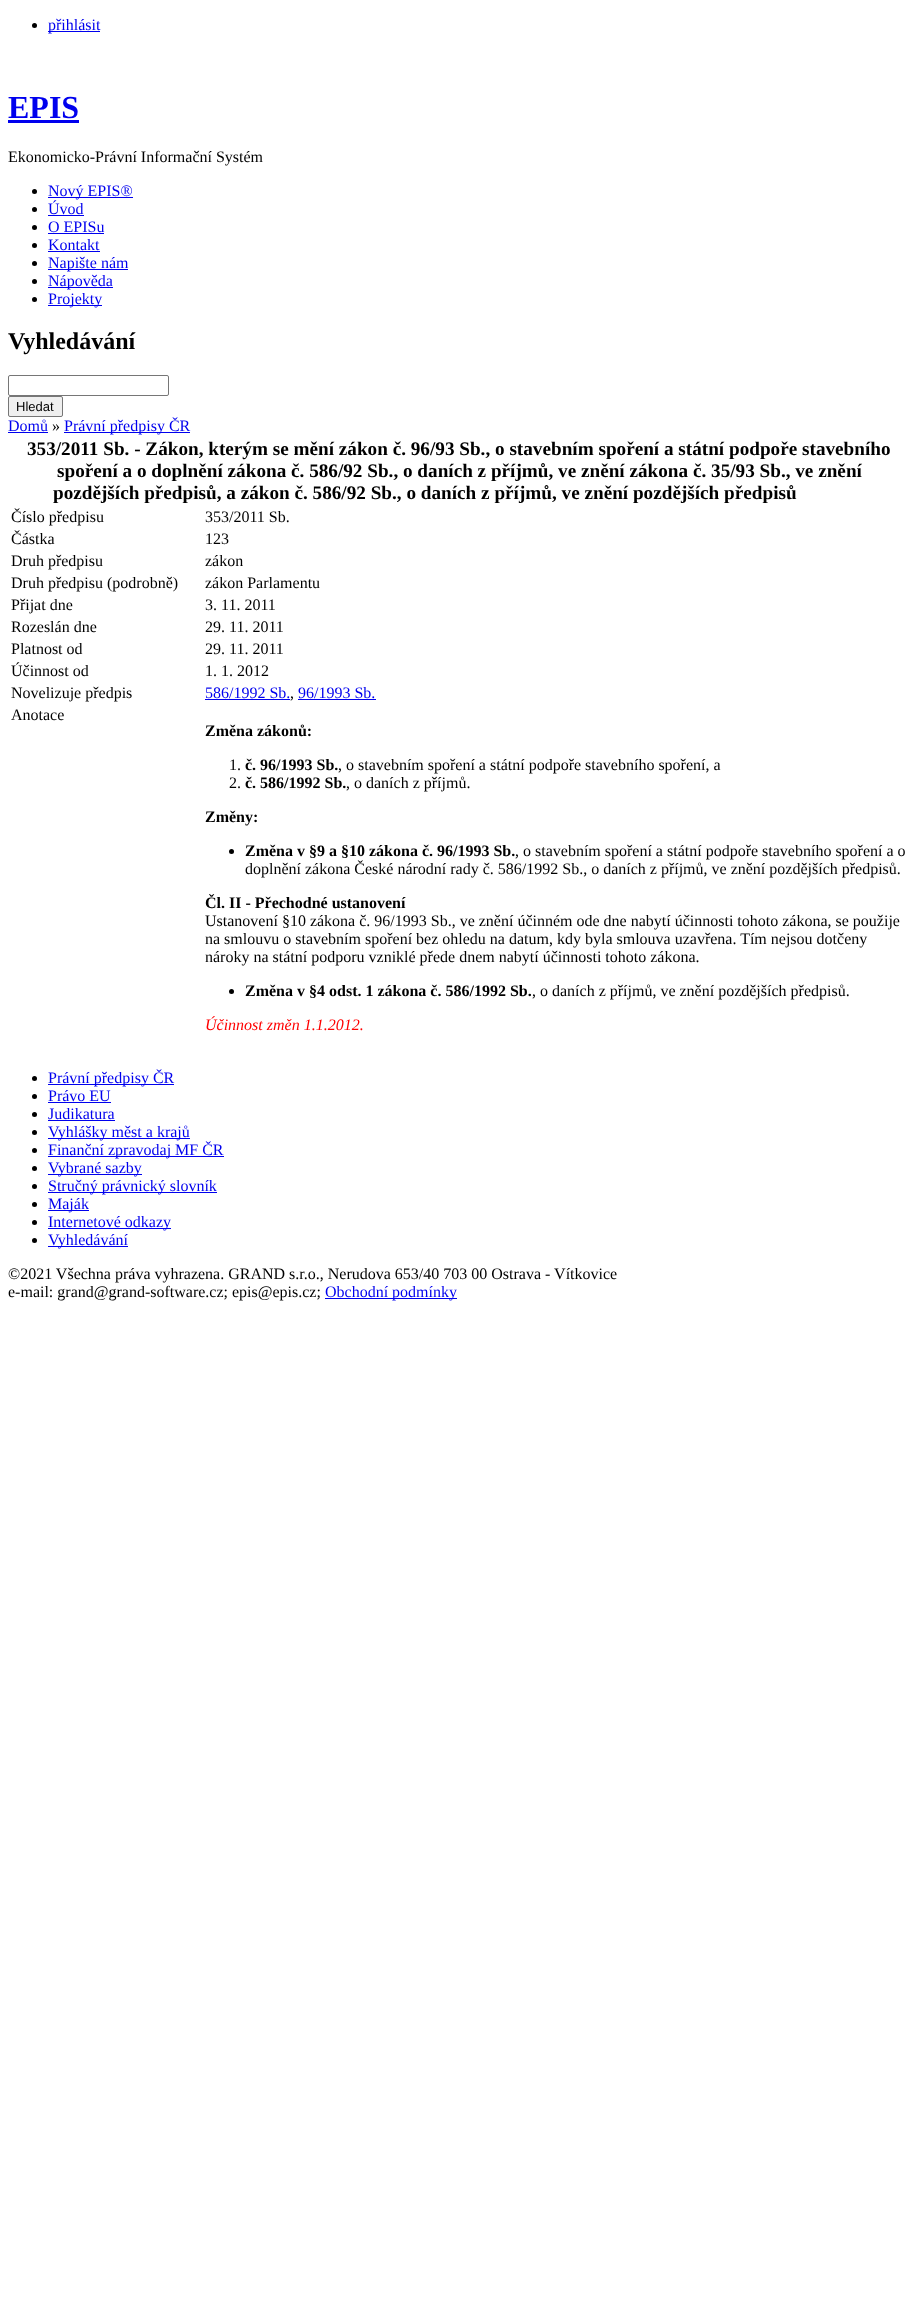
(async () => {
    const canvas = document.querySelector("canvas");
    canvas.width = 918;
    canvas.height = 2301;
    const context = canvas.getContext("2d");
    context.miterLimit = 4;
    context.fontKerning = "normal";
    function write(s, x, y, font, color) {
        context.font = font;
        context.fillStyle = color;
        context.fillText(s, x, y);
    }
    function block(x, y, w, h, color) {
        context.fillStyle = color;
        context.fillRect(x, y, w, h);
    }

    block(0, 0, 918, 2301, "rgb(255, 255, 255)");
    context.fillStyle = "rgb(0, 0, 0)";
    context.beginPath();
    context.arc(34.5, 25.5, 2.5, 0, Math.PI * 2);
    context.fill();
    block(48, 31, 52, 1, "rgb(0, 0, 238)");
    write("přihlásit", 48, 30, "16px Liberation Serif", "rgb(0, 0, 238)");
    write("EPIS", 8, 118, "bold 32px Liberation Serif", "rgb(0, 0, 238)");
    block(8, 120, 71, 3, "rgb(0, 0, 238)");
    write("Ekonomicko-Právní Informační Systém", 8, 162, "16px Liberation Serif", "rgb(0, 0, 0)");
    context.beginPath();
    context.arc(34.5, 191.5, 2.5, 0, Math.PI * 2);
    context.fill();
    block(48, 197, 85, 1, "rgb(0, 0, 238)");
    write("Nový EPIS®", 48, 196, "16px Liberation Serif", "rgb(0, 0, 238)");
    context.fillStyle = "rgb(0, 0, 0)";
    context.beginPath();
    context.arc(34.5, 209.5, 2.5, 0, Math.PI * 2);
    context.fill();
    write("Úvod", 48, 214, "16px Liberation Serif", "rgb(0, 0, 238)");
    block(48, 215, 36, 1, "rgb(0, 0, 238)");
    context.fillStyle = "rgb(0, 0, 0)";
    context.beginPath();
    context.arc(34.5, 227.5, 2.5, 0, Math.PI * 2);
    context.fill();
    write("O EPISu", 48, 232, "16px Liberation Serif", "rgb(0, 0, 238)");
    block(48, 233, 56, 1, "rgb(0, 0, 238)");
    context.fillStyle = "rgb(0, 0, 0)";
    context.beginPath();
    context.arc(34.5, 245.5, 2.5, 0, Math.PI * 2);
    context.fill();
    write("Kontakt", 48, 250, "16px Liberation Serif", "rgb(0, 0, 238)");
    block(48, 251, 52, 1, "rgb(0, 0, 238)");
    context.fillStyle = "rgb(0, 0, 0)";
    context.beginPath();
    context.arc(34.5, 263.5, 2.5, 0, Math.PI * 2);
    context.fill();
    block(48, 269, 80, 1, "rgb(0, 0, 238)");
    write("Napište nám", 48, 268, "16px Liberation Serif", "rgb(0, 0, 238)");
    context.fillStyle = "rgb(0, 0, 0)";
    context.beginPath();
    context.arc(34.5, 281.5, 2.5, 0, Math.PI * 2);
    context.fill();
    block(48, 287, 65, 1, "rgb(0, 0, 238)");
    write("Nápověda", 48, 286, "16px Liberation Serif", "rgb(0, 0, 238)");
    context.fillStyle = "rgb(0, 0, 0)";
    context.beginPath();
    context.arc(34.5, 299.5, 2.5, 0, Math.PI * 2);
    context.fill();
    block(48, 305, 54, 1, "rgb(0, 0, 238)");
    write("Projekty", 48, 304, "16px Liberation Serif", "rgb(0, 0, 238)");
    write("Vyhledávání", 8, 349, "bold 24px Liberation Serif", "rgb(0, 0, 0)");
    context.beginPath();
    context.roundRect(8.5, 375.5, 160, 20, 1.5);
    context.strokeStyle = "rgb(118, 118, 118)";
    context.stroke();
    context.fillStyle = "rgb(239, 239, 239)";
    context.beginPath();
    context.roundRect(8.5, 396.5, 54, 20, 1.5);
    context.fill();
    context.stroke();
    write("Hledat", 16, 411, "13px Liberation Sans", "rgb(0, 0, 0)");
    write("Domů", 8, 431, "16px Liberation Serif", "rgb(0, 0, 238)");
    block(8, 432, 40, 1, "rgb(0, 0, 238)");
    write("»", 52, 431, "16px Liberation Serif", "rgb(0, 0, 0)");
    block(64, 432, 126, 1, "rgb(0, 0, 238)");
    write("Právní předpisy ČR", 64, 431, "16px Liberation Serif", "rgb(0, 0, 238)");
    write("353/2011 Sb. - Zákon, kterým se mění zákon č. 96/93 Sb., o stavebním spoření a státní podpoře stavebního", 27, 455, "bold 19.2px Liberation Serif", "rgb(0, 0, 0)");
    write("spoření a o doplnění zákona č. 586/92 Sb., o daních z příjmů, ve znění zákona č. 35/93 Sb., ve znění", 57, 477, "bold 19.2px Liberation Serif", "rgb(0, 0, 0)");
    write("pozdějších předpisů, a zákon č. 586/92 Sb., o daních z příjmů, ve znění pozdějších předpisů", 53, 499, "bold 19.2px Liberation Serif", "rgb(0, 0, 0)");
    write("Číslo předpisu", 11, 522, "16px Liberation Serif", "rgb(0, 0, 0)");
    write("353/2011 Sb.", 205, 522, "16px Liberation Serif", "rgb(0, 0, 0)");
    write("Částka", 11, 544, "16px Liberation Serif", "rgb(0, 0, 0)");
    write("123", 205, 544, "16px Liberation Serif", "rgb(0, 0, 0)");
    write("Druh předpisu", 11, 566, "16px Liberation Serif", "rgb(0, 0, 0)");
    write("zákon", 205, 566, "16px Liberation Serif", "rgb(0, 0, 0)");
    write("Druh předpisu (podrobně)", 11, 588, "16px Liberation Serif", "rgb(0, 0, 0)");
    write("zákon Parlamentu", 205, 588, "16px Liberation Serif", "rgb(0, 0, 0)");
    write("Přijat dne", 11, 610, "16px Liberation Serif", "rgb(0, 0, 0)");
    write("3. 11. 2011", 205, 610, "16px Liberation Serif", "rgb(0, 0, 0)");
    write("Rozeslán dne", 11, 632, "16px Liberation Serif", "rgb(0, 0, 0)");
    write("29. 11. 2011", 205, 632, "16px Liberation Serif", "rgb(0, 0, 0)");
    write("Platnost od", 11, 654, "16px Liberation Serif", "rgb(0, 0, 0)");
    write("29. 11. 2011", 205, 654, "16px Liberation Serif", "rgb(0, 0, 0)");
    write("Účinnost od", 11, 676, "16px Liberation Serif", "rgb(0, 0, 0)");
    write("1. 1. 2012", 205, 676, "16px Liberation Serif", "rgb(0, 0, 0)");
    write("Novelizuje předpis", 11, 698, "16px Liberation Serif", "rgb(0, 0, 0)");
    write("586/1992 Sb.", 205, 698, "16px Liberation Serif", "rgb(0, 0, 238)");
    block(205, 699, 85, 1, "rgb(0, 0, 238)");
    write(",", 290, 698, "16px Liberation Serif", "rgb(0, 0, 0)");
    write("96/1993 Sb.", 298, 698, "16px Liberation Serif", "rgb(0, 0, 238)");
    block(298, 699, 78, 1, "rgb(0, 0, 238)");
    write("Anotace", 11, 720, "16px Liberation Serif", "rgb(0, 0, 0)");
    write("Změna zákonů:", 205, 736, "bold 16px Liberation Serif", "rgb(0, 0, 0)");
    write("1.", 229, 770, "16px Liberation Serif", "rgb(0, 0, 0)");
    write("č. 96/1993 Sb.", 245, 770, "bold 16px Liberation Serif", "rgb(0, 0, 0)");
    write(", o stavebním spoření a státní podpoře stavebního spoření, a", 338, 770, "16px Liberation Serif", "rgb(0, 0, 0)");
    write("2.", 229, 788, "16px Liberation Serif", "rgb(0, 0, 0)");
    write("č. 586/1992 Sb.", 245, 788, "bold 16px Liberation Serif", "rgb(0, 0, 0)");
    write(", o daních z příjmů.", 346, 788, "16px Liberation Serif", "rgb(0, 0, 0)");
    write("Změny:", 205, 822, "bold 16px Liberation Serif", "rgb(0, 0, 0)");
    context.beginPath();
    context.arc(231.5, 851.5, 2.5, 0, Math.PI * 2);
    context.fill();
    write("Změna v §9 a §10 zákona č. 96/1993 Sb.", 245, 856, "bold 16px Liberation Serif", "rgb(0, 0, 0)");
    write(", o stavebním spoření a státní podpoře stavebního spoření a o", 515, 856, "16px Liberation Serif", "rgb(0, 0, 0)");
    write("doplnění zákona České národní rady č. 586/1992 Sb., o daních z příjmů, ve znění pozdějších předpisů.", 245, 874, "16px Liberation Serif", "rgb(0, 0, 0)");
    write("Čl. II - Přechodné ustanovení", 205, 908, "bold 16px Liberation Serif", "rgb(0, 0, 0)");
    write("Ustanovení §10 zákona č. 96/1993 Sb., ve znění účinném ode dne nabytí účinnosti tohoto zákona, se použije", 205, 926, "16px Liberation Serif", "rgb(0, 0, 0)");
    write("na smlouvu o stavebním spoření bez ohledu na datum, kdy byla smlouva uzavřena. Tím nejsou dotčeny", 205, 944, "16px Liberation Serif", "rgb(0, 0, 0)");
    write("nároky na státní podporu vzniklé přede dnem nabytí účinnosti tohoto zákona.", 205, 962, "16px Liberation Serif", "rgb(0, 0, 0)");
    context.beginPath();
    context.arc(231.5, 991.5, 2.5, 0, Math.PI * 2);
    context.fill();
    write("Změna v §4 odst. 1 zákona č. 586/1992 Sb.", 245, 996, "bold 16px Liberation Serif", "rgb(0, 0, 0)");
    write(", o daních z příjmů, ve znění pozdějších předpisů.", 532, 996, "16px Liberation Serif", "rgb(0, 0, 0)");
    write("Účinnost změn 1.1.2012.", 205, 1030, "italic 16px Liberation Serif", "rgb(255, 0, 0)");
    context.fillStyle = "rgb(0, 0, 0)";
    context.beginPath();
    context.arc(34.5, 1078.5, 2.5, 0, Math.PI * 2);
    context.fill();
    block(48, 1084, 126, 1, "rgb(0, 0, 238)");
    write("Právní předpisy ČR", 48, 1083, "16px Liberation Serif", "rgb(0, 0, 238)");
    context.fillStyle = "rgb(0, 0, 0)";
    context.beginPath();
    context.arc(34.5, 1096.5, 2.5, 0, Math.PI * 2);
    context.fill();
    write("Právo EU", 48, 1101, "16px Liberation Serif", "rgb(0, 0, 238)");
    block(48, 1102, 63, 1, "rgb(0, 0, 238)");
    context.fillStyle = "rgb(0, 0, 0)";
    context.beginPath();
    context.arc(34.5, 1114.5, 2.5, 0, Math.PI * 2);
    context.fill();
    write("Judikatura", 48, 1119, "16px Liberation Serif", "rgb(0, 0, 238)");
    block(48, 1120, 67, 1, "rgb(0, 0, 238)");
    context.fillStyle = "rgb(0, 0, 0)";
    context.beginPath();
    context.arc(34.5, 1132.5, 2.5, 0, Math.PI * 2);
    context.fill();
    block(48, 1138, 142, 1, "rgb(0, 0, 238)");
    write("Vyhlášky měst a krajů", 48, 1137, "16px Liberation Serif", "rgb(0, 0, 238)");
    context.fillStyle = "rgb(0, 0, 0)";
    context.beginPath();
    context.arc(34.5, 1150.5, 2.5, 0, Math.PI * 2);
    context.fill();
    block(48, 1156, 176, 1, "rgb(0, 0, 238)");
    write("Finanční zpravodaj MF ČR", 48, 1155, "16px Liberation Serif", "rgb(0, 0, 238)");
    context.fillStyle = "rgb(0, 0, 0)";
    context.beginPath();
    context.arc(34.5, 1168.5, 2.5, 0, Math.PI * 2);
    context.fill();
    block(48, 1174, 94, 1, "rgb(0, 0, 238)");
    write("Vybrané sazby", 48, 1173, "16px Liberation Serif", "rgb(0, 0, 238)");
    context.fillStyle = "rgb(0, 0, 0)";
    context.beginPath();
    context.arc(34.5, 1186.5, 2.5, 0, Math.PI * 2);
    context.fill();
    block(48, 1192, 169, 1, "rgb(0, 0, 238)");
    write("Stručný právnický slovník", 48, 1191, "16px Liberation Serif", "rgb(0, 0, 238)");
    context.fillStyle = "rgb(0, 0, 0)";
    context.beginPath();
    context.arc(34.5, 1204.5, 2.5, 0, Math.PI * 2);
    context.fill();
    block(48, 1210, 41, 1, "rgb(0, 0, 238)");
    write("Maják", 48, 1209, "16px Liberation Serif", "rgb(0, 0, 238)");
    context.fillStyle = "rgb(0, 0, 0)";
    context.beginPath();
    context.arc(34.5, 1222.5, 2.5, 0, Math.PI * 2);
    context.fill();
    block(48, 1228, 123, 1, "rgb(0, 0, 238)");
    write("Internetové odkazy", 48, 1227, "16px Liberation Serif", "rgb(0, 0, 238)");
    context.fillStyle = "rgb(0, 0, 0)";
    context.beginPath();
    context.arc(34.5, 1240.5, 2.5, 0, Math.PI * 2);
    context.fill();
    block(48, 1246, 80, 1, "rgb(0, 0, 238)");
    write("Vyhledávání", 48, 1245, "16px Liberation Serif", "rgb(0, 0, 238)");
    write("©2021 Všechna práva vyhrazena. GRAND s.r.o., Nerudova 653/40 703 00 Ostrava - Vítkovice", 8, 1279, "16px Liberation Serif", "rgb(0, 0, 0)");
    write("e-mail: grand@grand-software.cz; epis@epis.cz;", 8, 1297, "16px Liberation Serif", "rgb(0, 0, 0)");
    block(325, 1298, 132, 1, "rgb(0, 0, 238)");
    write("Obchodní podmínky", 325, 1297, "16px Liberation Serif", "rgb(0, 0, 238)");
})();
